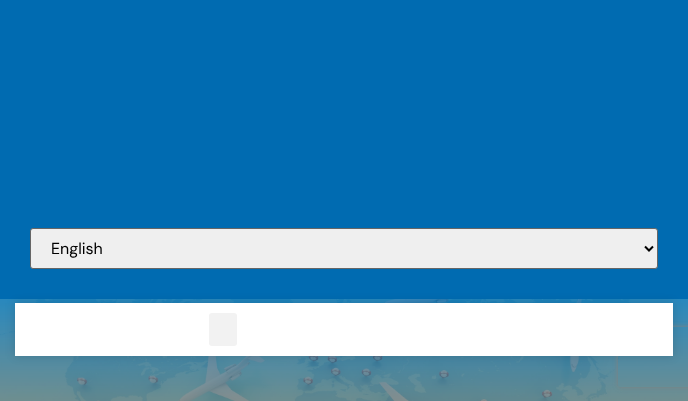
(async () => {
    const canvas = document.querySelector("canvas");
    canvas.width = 688;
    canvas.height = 401;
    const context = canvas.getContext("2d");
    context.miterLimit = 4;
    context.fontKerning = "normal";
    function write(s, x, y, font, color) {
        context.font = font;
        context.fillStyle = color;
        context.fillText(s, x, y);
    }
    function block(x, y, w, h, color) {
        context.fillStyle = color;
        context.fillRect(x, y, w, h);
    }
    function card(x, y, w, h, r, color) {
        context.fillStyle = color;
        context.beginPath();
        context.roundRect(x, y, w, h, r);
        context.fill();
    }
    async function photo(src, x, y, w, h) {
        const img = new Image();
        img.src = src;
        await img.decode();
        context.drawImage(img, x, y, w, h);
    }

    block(0, 0, 688, 401, "rgb(255, 255, 255)");
    block(0, 0, 688, 299, "rgb(0, 107, 177)");
    context.fillStyle = "rgb(239, 239, 239)";
    context.beginPath();
    context.roundRect(30.5, 228.5, 627, 40, 2.5);
    context.fill();
    context.strokeStyle = "rgb(102, 102, 102)";
    context.stroke();
    context.beginPath();
    context.moveTo(645, 246.5);
    context.lineTo(649, 250.5);
    context.lineTo(653, 246.5);
    context.strokeStyle = "rgb(0, 0, 0)";
    context.lineWidth = 2;
    context.stroke();
    write("English", 51, 254, "16px DM Sans", "rgb(0, 0, 0)");
    await photo("media/1.png", 0, 299, 688, 102);
    context.fillStyle = "rgba(0, 0, 0, 0.15)";
    context.filter = "blur(5px)";
    context.beginPath();
    context.rect(15, 303, 658, 53);
    context.fill();
    context.filter = "none";
    context.save();
    context.beginPath();
    context.moveTo(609, 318);
    context.lineTo(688, 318);
    context.lineTo(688, 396);
    context.lineTo(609, 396);
    context.closePath();
    context.moveTo(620, 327);
    context.lineTo(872, 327);
    context.bezierCurveTo(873, 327, 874, 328, 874, 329);
    context.lineTo(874, 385);
    context.bezierCurveTo(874, 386, 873, 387, 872, 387);
    context.lineTo(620, 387);
    context.bezierCurveTo(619, 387, 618, 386, 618, 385);
    context.lineTo(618, 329);
    context.bezierCurveTo(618, 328, 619, 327, 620, 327);
    context.closePath();
    context.clip("evenodd");
    context.fillStyle = "rgb(128, 128, 128)";
    context.filter = "blur(2.5px)";
    context.beginPath();
    context.roundRect(618, 327, 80, 60, 2);
    context.fill();
    context.filter = "none";
    context.restore();
    block(15, 303, 658, 53, "rgb(255, 255, 255)");
    card(209, 313, 28, 33, 3, "rgb(242, 242, 242)");
})();
